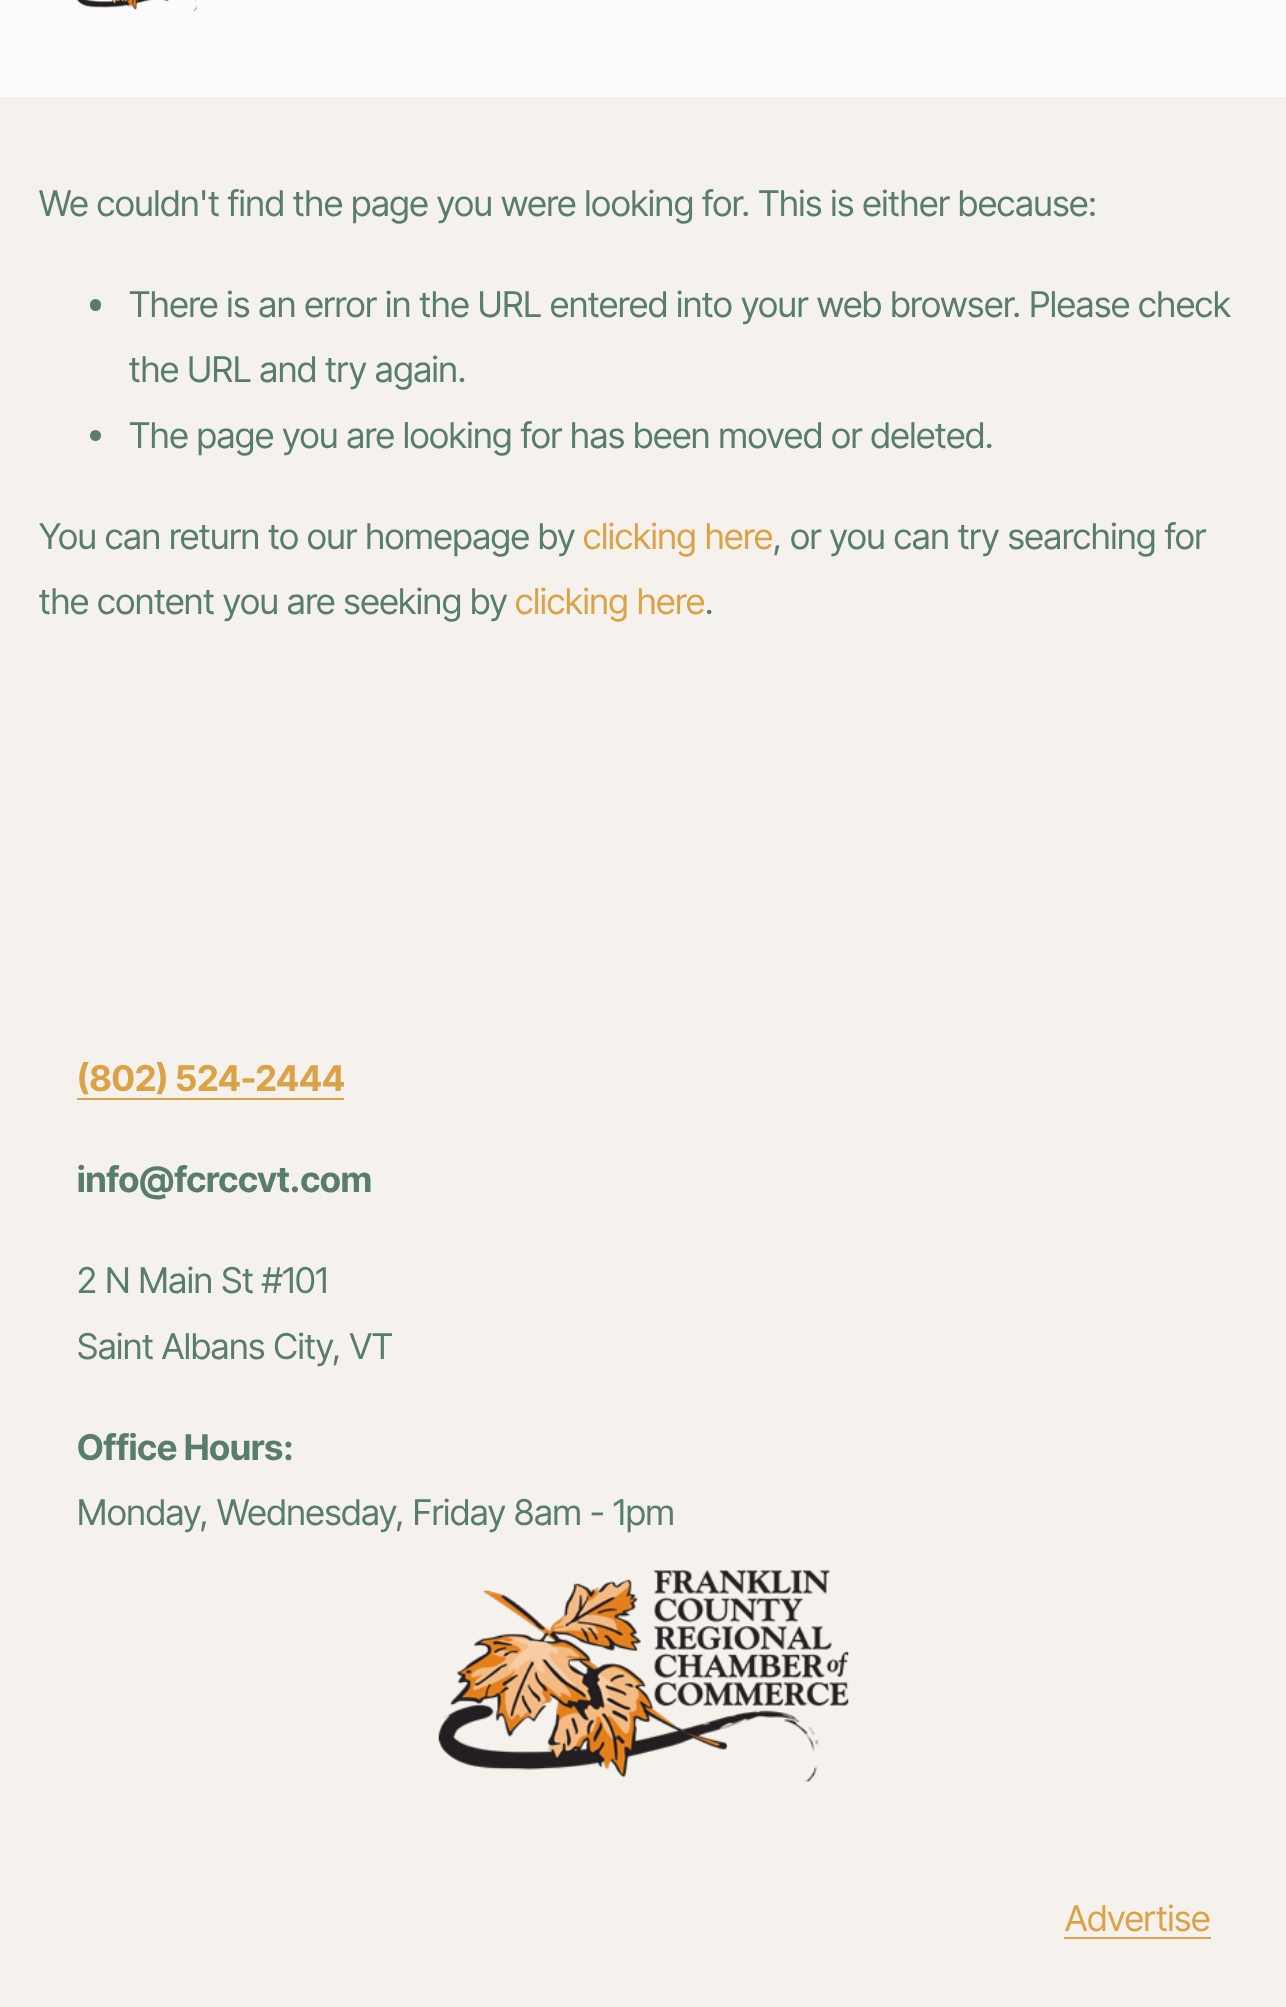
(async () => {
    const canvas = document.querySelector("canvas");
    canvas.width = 1286;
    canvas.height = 2007;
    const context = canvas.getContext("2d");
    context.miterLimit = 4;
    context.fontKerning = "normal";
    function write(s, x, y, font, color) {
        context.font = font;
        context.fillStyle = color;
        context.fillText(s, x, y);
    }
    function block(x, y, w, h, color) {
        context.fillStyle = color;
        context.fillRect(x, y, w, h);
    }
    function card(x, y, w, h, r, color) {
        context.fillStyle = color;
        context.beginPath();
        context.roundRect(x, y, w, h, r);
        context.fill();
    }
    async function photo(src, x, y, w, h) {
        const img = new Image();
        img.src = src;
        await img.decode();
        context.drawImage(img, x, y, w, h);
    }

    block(0, 0, 1286, 2007, "rgb(245, 242, 238)");
    block(0, 0, 1286, 97, "rgb(251, 251, 251)");
    await photo("media/1.png", 77, 0, 121, 11);
    write("We couldn't find the page you were looking for. This is either because:", 39, 216, "35.5px Inter Tight", "rgb(88, 125, 110)");
    card(90, 299, 11, 12, 5.5, "rgb(88, 125, 110)");
    write("There is an error in the URL entered into your web browser. Please check", 129, 317, "35.5px Inter Tight", "rgb(88, 125, 110)");
    write("the URL and try again.", 129, 382, "35.5px Inter Tight", "rgb(88, 125, 110)");
    context.beginPath();
    context.arc(95.5, 435.5, 5.5, 0, Math.PI * 2);
    context.fill();
    write("The page you are looking for has been moved or deleted.", 129, 448, "35.5px Inter Tight", "rgb(88, 125, 110)");
    write("You can return to our homepage by", 39, 549, "35.5px Inter Tight", "rgb(88, 125, 110)");
    write("clicking here", 583, 549, "35.5px Inter Tight", "rgb(220, 162, 72)");
    write(", or you can try searching for", 773, 549, "35.5px Inter Tight", "rgb(88, 125, 110)");
    write("the content you are seeking by", 39, 614, "35.5px Inter Tight", "rgb(88, 125, 110)");
    write("clicking here", 515, 614, "35.5px Inter Tight", "rgb(220, 162, 72)");
    write(".", 705, 614, "35.5px Inter Tight", "rgb(88, 125, 110)");
    write("(802) 524-2444", 77, 1091, "bold 35.5px Inter Tight", "rgb(220, 162, 72)");
    block(77, 1098, 267, 2, "rgb(220, 162, 72)");
    write("info@fcrccvt.com", 77, 1192, "bold 35.5px Inter Tight", "rgb(88, 125, 110)");
    write("2 N Main St #101", 77, 1293, "35.5px Inter Tight", "rgb(88, 125, 110)");
    write("Saint Albans City, VT", 77, 1359, "35.5px Inter Tight", "rgb(88, 125, 110)");
    write("Office Hours:", 77, 1460, "bold 35.5px Inter Tight", "rgb(88, 125, 110)");
    write("Monday, Wednesday, Friday 8am - 1pm", 77, 1525, "35.5px Inter Tight", "rgb(88, 125, 110)");
    await photo("media/2.png", 438, 1570, 411, 212);
    write("Advertise", 1065, 1931, "35.5px Inter Tight", "rgb(220, 162, 72)");
    block(1064, 1937, 147, 2, "rgb(220, 162, 72)");
})();
